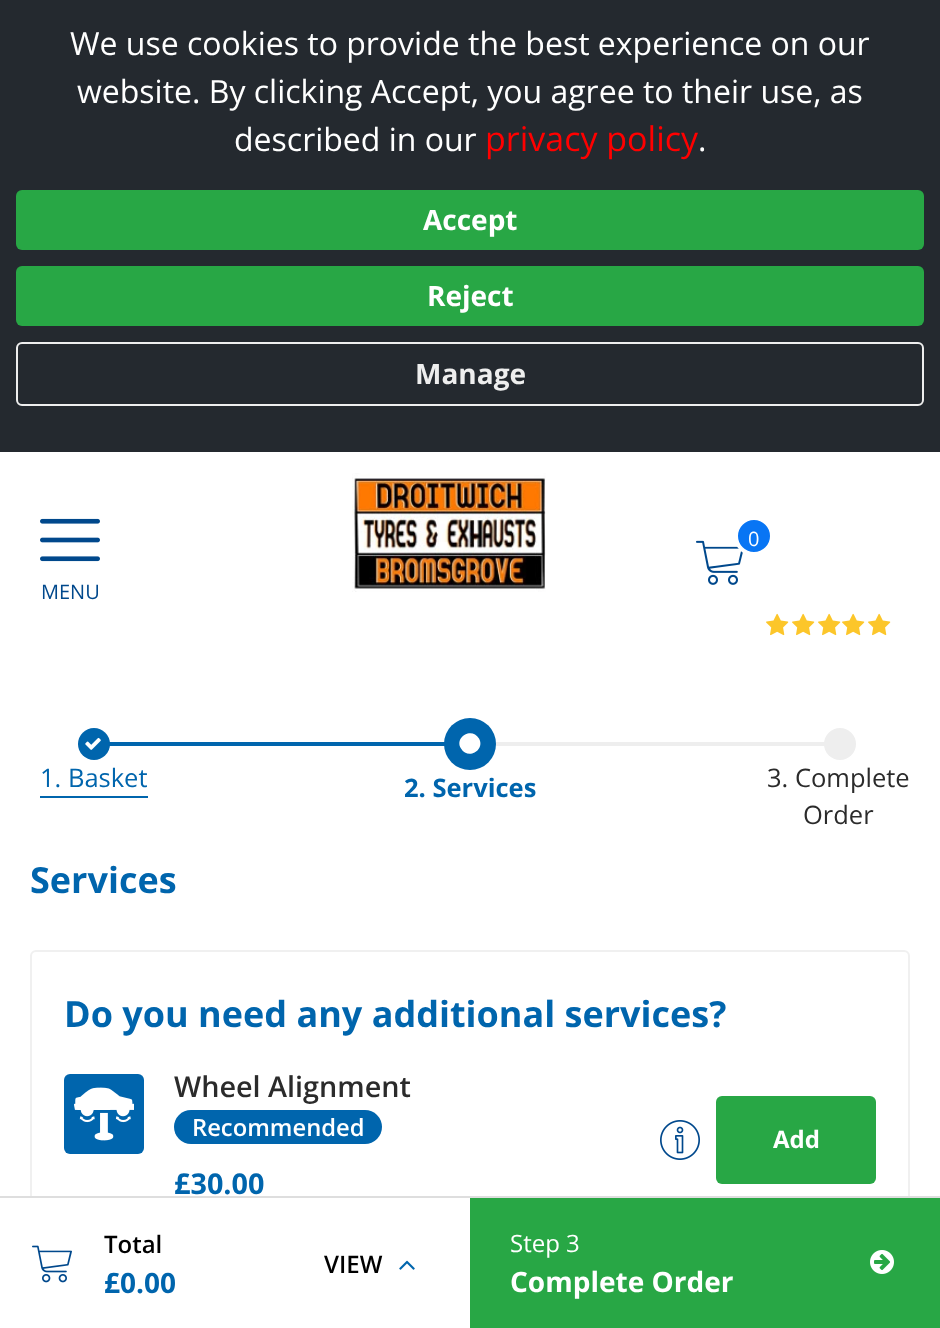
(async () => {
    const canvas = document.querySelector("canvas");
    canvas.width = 940;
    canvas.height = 1328;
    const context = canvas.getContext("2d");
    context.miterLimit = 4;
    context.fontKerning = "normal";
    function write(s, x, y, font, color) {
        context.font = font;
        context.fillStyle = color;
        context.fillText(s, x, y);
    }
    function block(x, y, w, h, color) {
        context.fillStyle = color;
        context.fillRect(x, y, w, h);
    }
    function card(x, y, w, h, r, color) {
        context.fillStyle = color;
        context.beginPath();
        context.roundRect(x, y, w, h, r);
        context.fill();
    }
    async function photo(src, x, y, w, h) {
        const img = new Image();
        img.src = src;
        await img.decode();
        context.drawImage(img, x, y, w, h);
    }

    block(0, 0, 940, 1328, "rgb(255, 255, 255)");
    block(0, 0, 940, 452, "rgb(36, 41, 47)");
    write("We use cookies to provide the best experience on our", 70, 55, "32px Open Sans", "rgb(255, 255, 255)");
    write("website. By clicking Accept, you agree to their use, as", 77, 103, "32px Open Sans", "rgb(255, 255, 255)");
    write("described in our", 234, 151, "32px Open Sans", "rgb(255, 255, 255)");
    write("privacy policy", 485, 151, "34px Open Sans", "rgb(255, 0, 0)");
    write(".", 698, 151, "32px Open Sans", "rgb(255, 255, 255)");
    card(16, 190, 908, 60, 6, "rgb(40, 167, 69)");
    write("Accept", 423, 230, "bold 28px Open Sans", "rgb(255, 255, 255)");
    card(16, 266, 908, 60, 6, "rgb(40, 167, 69)");
    write("Reject", 427, 306, "bold 28px Open Sans", "rgb(255, 255, 255)");
    context.beginPath();
    context.roundRect(17, 343, 906, 62, 5);
    context.strokeStyle = "rgb(238, 238, 238)";
    context.lineWidth = 2;
    context.stroke();
    write("Manage", 415, 384, "bold 28px Open Sans", "rgb(238, 238, 238)");
    await photo("media/1.png", 352, 473, 194, 119);
    await photo("media/2.png", 766, 613, 23, 23);
    await photo("media/2.png", 792, 613, 23, 23);
    await photo("media/2.png", 818, 613, 23, 23);
    await photo("media/2.png", 842, 613, 23, 23);
    await photo("media/2.png", 868, 613, 23, 23);
    await photo("media/3.png", 696, 540, 47, 45);
    context.fillStyle = "rgb(8, 117, 244)";
    context.beginPath();
    context.arc(754, 536, 18, 0, Math.PI * 2);
    context.fill();
    context.strokeStyle = "rgb(255, 255, 255)";
    context.lineWidth = 4;
    context.stroke();
    write("0", 748, 546, "20px Open Sans", "rgb(255, 255, 255)");
    await photo("media/4.png", 40, 518, 60, 44);
    write("MENU", 41, 599, "20px Open Sans", "rgb(0, 72, 140)");
    block(495, 742, 330, 4, "rgb(238, 238, 238)");
    block(109, 742, 336, 4, "rgb(0, 101, 173)");
    context.beginPath();
    context.arc(94, 744, 16, 0, Math.PI * 2);
    context.fill();
    await photo("media/5.png", 85, 737, 16, 13);
    write("1. Basket", 40, 787, "25.5px Open Sans", "rgb(0, 101, 173)");
    block(40, 796, 108, 2, "rgb(0, 101, 173)");
    context.beginPath();
    context.arc(470, 744, 26, 0, Math.PI * 2);
    context.fill();
    context.fillStyle = "rgb(255, 255, 255)";
    context.beginPath();
    context.moveTo(479, 738.5);
    context.bezierCurveTo(485.5, 750, 468, 760.5, 461, 748.5);
    context.bezierCurveTo(454, 737, 472, 726.5, 479, 738.5);
    context.closePath();
    context.fill();
    write("2. Services", 404, 797, "bold 25.5px Open Sans", "rgb(0, 101, 173)");
    context.fillStyle = "rgb(238, 238, 238)";
    context.beginPath();
    context.arc(840, 744, 16, 0, Math.PI * 2);
    context.fill();
    write("3. Complete", 767, 787, "25.5px Open Sans", "rgb(43, 43, 43)");
    write("Order", 803, 824, "25.5px Open Sans", "rgb(43, 43, 43)");
    write("Services", 30, 893, "bold 36px Open Sans", "rgb(0, 101, 173)");
    context.beginPath();
    context.roundRect(31, 951, 878, 290, 5);
    context.strokeStyle = "rgb(240, 240, 240)";
    context.lineWidth = 2;
    context.stroke();
    write("Do you need any additional services?", 64, 1027, "bold 36px Open Sans", "rgb(0, 101, 173)");
    card(64, 1074, 80, 80, 6, "rgb(0, 101, 173)");
    await photo("media/6.png", 74, 1087, 60, 54);
    write("Wheel Alignment", 174, 1097, "600 28.75px Open Sans", "rgb(43, 43, 43)");
    card(174, 1110, 208, 34, 17, "rgb(0, 101, 173)");
    write("Recommended", 192, 1136, "600 23.75px Open Sans", "rgb(255, 255, 255)");
    write("£30.00", 174, 1194, "bold 28.75px Open Sans", "rgb(0, 101, 173)");
    await photo("media/7.png", 660, 1120, 40, 40);
    card(716, 1096, 160, 88, 6, "rgb(40, 167, 69)");
    write("Add", 773, 1148, "bold 24px Open Sans", "rgb(255, 255, 255)");
    block(30, 1198, 440, 44, "rgb(255, 255, 255)");
    block(0, 1196, 940, 2, "rgb(222, 222, 222)");
    await photo("media/8.png", 32, 1245, 40, 38);
    write("Total", 104, 1253, "600 24px Open Sans", "rgb(0, 0, 0)");
    write("£0.00", 104, 1293, "bold 28px Open Sans", "rgb(0, 101, 173)");
    write("VIEW", 324, 1273, "600 24px Open Sans", "rgb(0, 0, 0)");
    await photo("media/9.png", 399, 1260, 16, 10);
    block(470, 1198, 470, 130, "rgb(40, 167, 69)");
    write("Step 3", 510, 1252, "24px Open Sans", "rgb(255, 255, 255)");
    write("Complete Order", 510, 1292, "bold 28px Open Sans", "rgb(255, 255, 255)");
    await photo("media/10.png", 870, 1250, 24, 24);
})();
